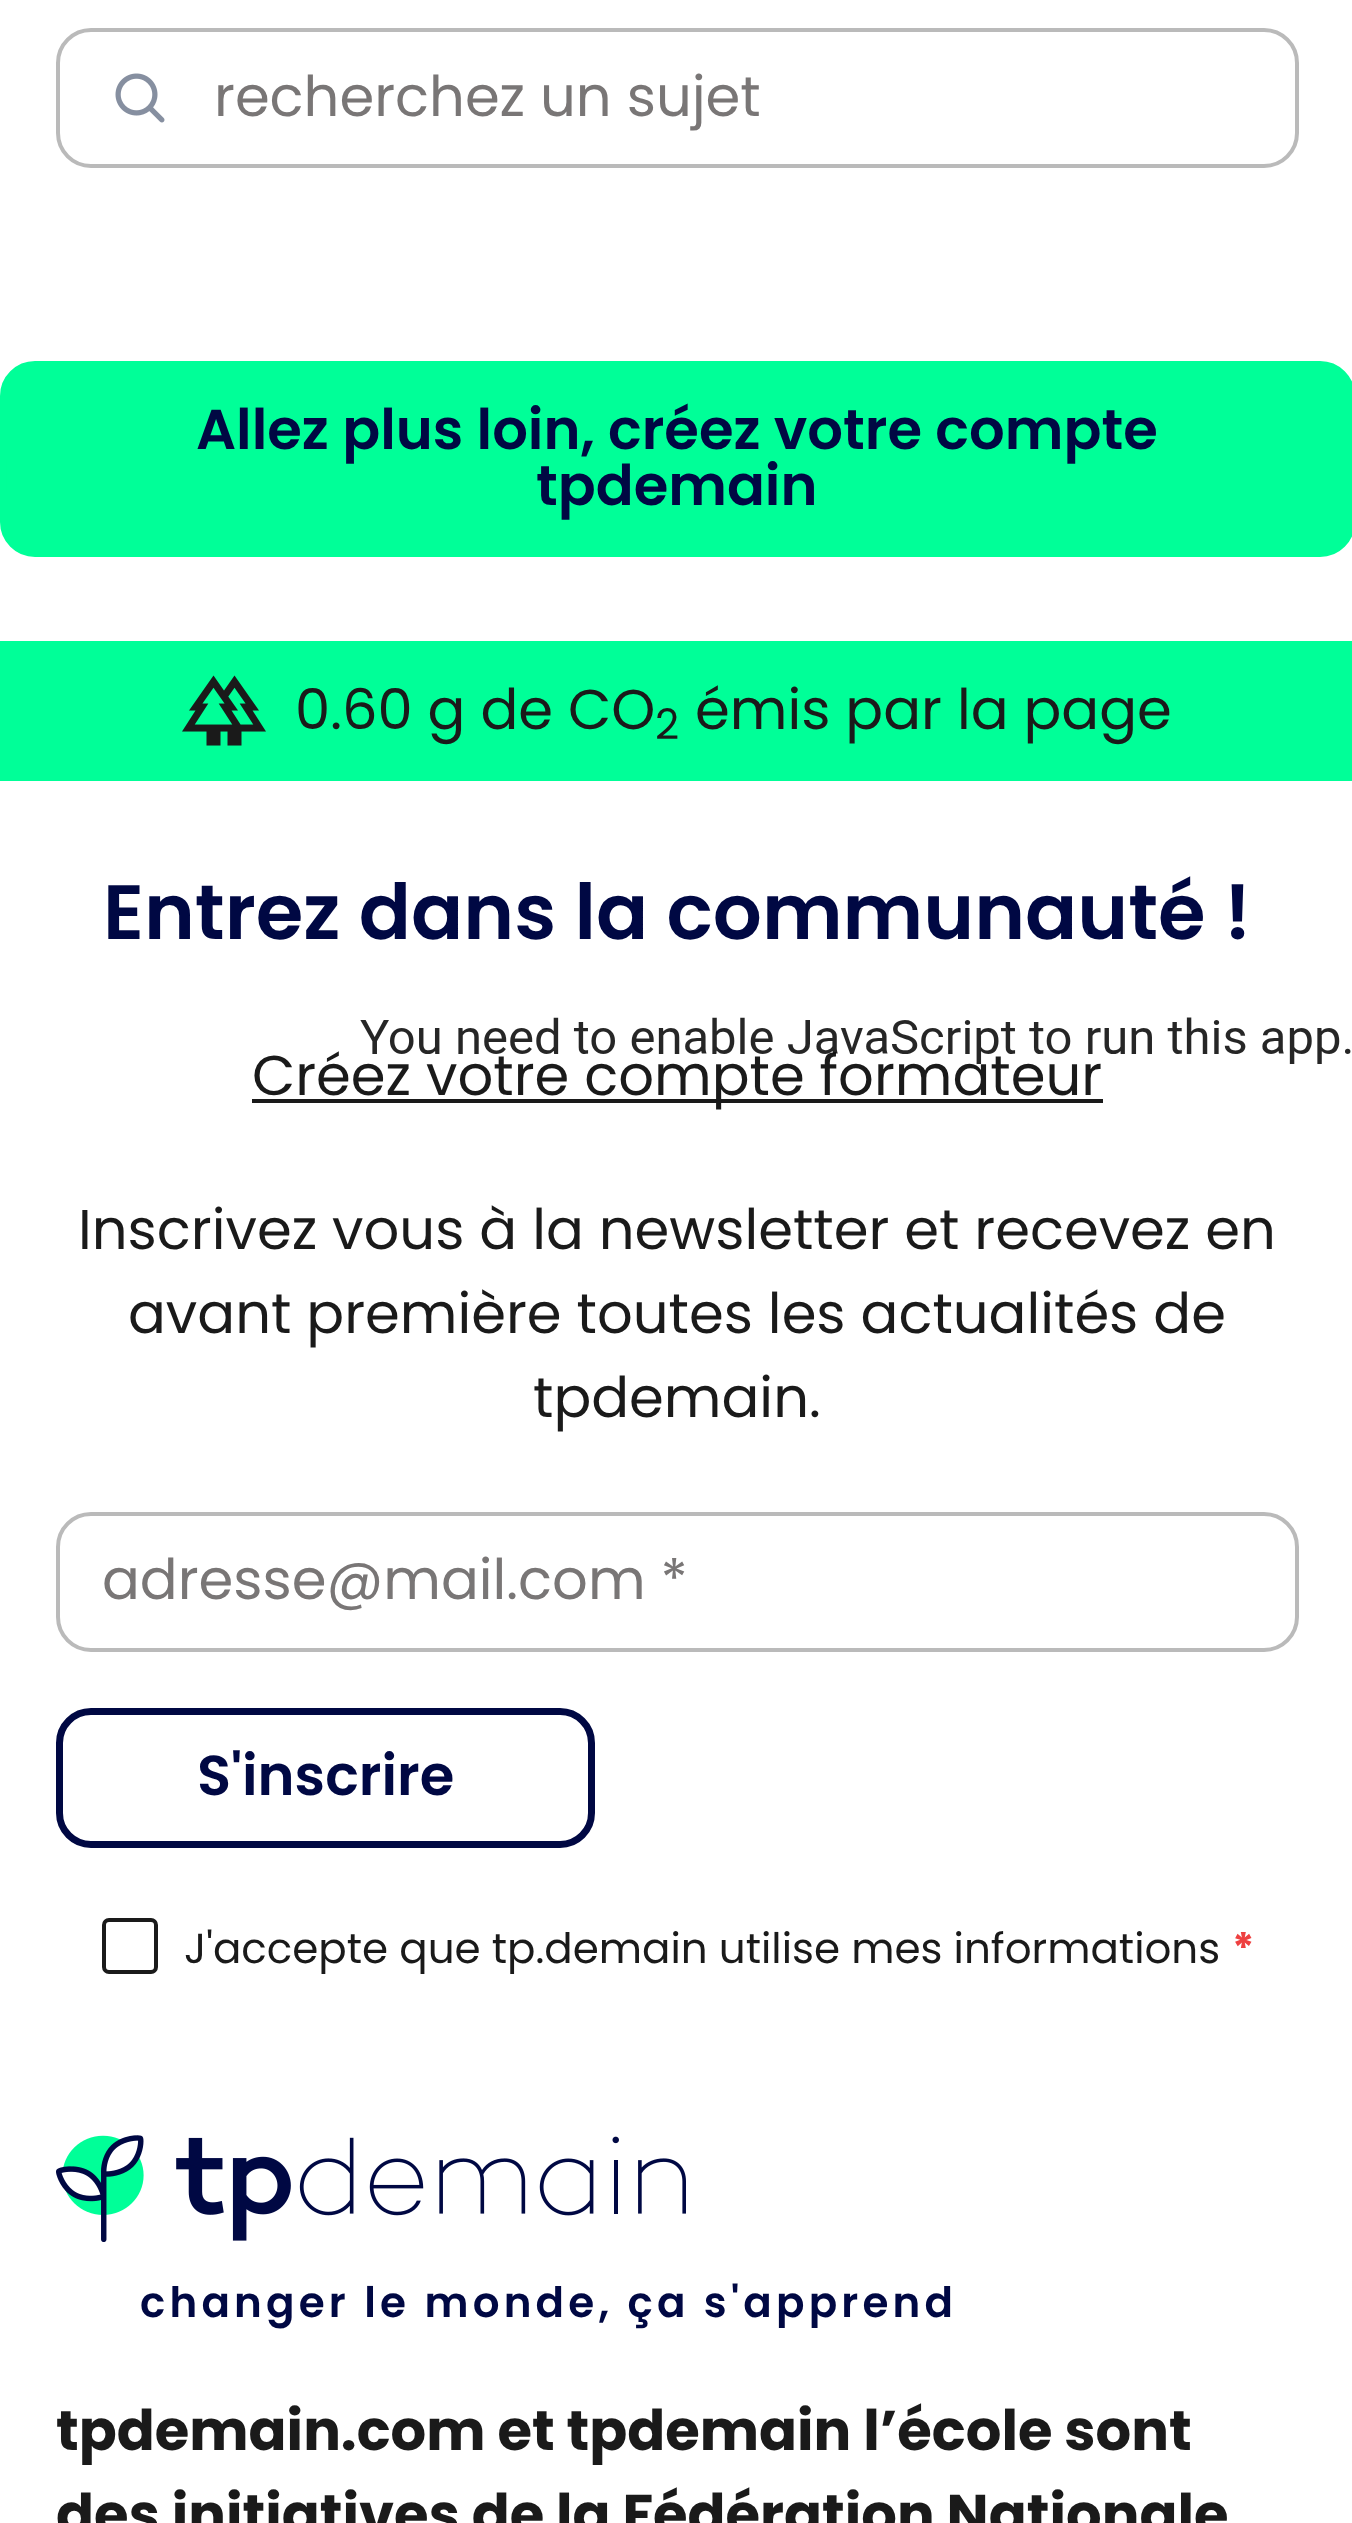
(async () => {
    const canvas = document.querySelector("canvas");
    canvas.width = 1352;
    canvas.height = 2523;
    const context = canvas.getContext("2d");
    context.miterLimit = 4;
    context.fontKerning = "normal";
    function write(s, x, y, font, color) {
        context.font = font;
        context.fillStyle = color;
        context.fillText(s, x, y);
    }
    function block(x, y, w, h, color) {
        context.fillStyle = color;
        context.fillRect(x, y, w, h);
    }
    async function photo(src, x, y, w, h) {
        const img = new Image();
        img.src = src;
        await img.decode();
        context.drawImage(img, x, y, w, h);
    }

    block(0, 0, 1352, 2523, "rgb(255, 255, 255)");
    context.beginPath();
    context.roundRect(58, 30, 1239, 136, 33);
    context.strokeStyle = "rgb(186, 186, 186)";
    context.lineWidth = 4;
    context.stroke();
    await photo("media/1.png", 115, 73, 50, 50);
    write("recherchez un sujet", 214, 116, "56px Poppins", "rgb(121, 118, 118)");
    context.fillStyle = "rgb(0, 255, 152)";
    context.beginPath();
    context.roundRect(3.5, 364.5, 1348, 189, 31.5);
    context.fill();
    context.strokeStyle = "rgb(0, 255, 152)";
    context.lineWidth = 7;
    context.stroke();
    write("Allez plus loin, créez votre compte", 196, 449, "600 56px Poppins", "rgb(0, 8, 67)");
    write("tpdemain", 536, 505, "600 56px Poppins", "rgb(0, 8, 67)");
    block(0, 641, 1352, 140, "rgb(0, 255, 152)");
    await photo("media/2.png", 182, 675, 84, 71);
    write("0.60 g de CO", 295, 729, "56px Poppins", "rgb(26, 26, 26)");
    write("2", 655, 739, "42px Poppins", "rgb(26, 26, 26)");
    write("émis par la page", 695, 729, "56px Poppins", "rgb(26, 26, 26)");
    write("Entrez dans la communauté !", 103, 939, "600 77px Poppins", "rgb(0, 8, 67)");
    block(252, 1099, 851, 4, "rgb(26, 26, 26)");
    write("Créez votre compte formateur", 252, 1095, "56px Poppins", "rgb(26, 26, 26)");
    write("Inscrivez vous à la newsletter et recevez en", 78, 1249, "56px Poppins", "rgb(26, 26, 26)");
    write("avant première toutes les actualités de", 128, 1333, "56px Poppins", "rgb(26, 26, 26)");
    write("tpdemain.", 533, 1417, "56px Poppins", "rgb(26, 26, 26)");
    context.beginPath();
    context.roundRect(58, 1514, 1239, 136, 33);
    context.strokeStyle = "rgb(186, 186, 186)";
    context.lineWidth = 4;
    context.stroke();
    write("adresse@mail.com *", 102, 1599, "56px Poppins", "rgb(121, 118, 118)");
    context.beginPath();
    context.roundRect(59.5, 1711.5, 532, 133, 31.5);
    context.strokeStyle = "rgb(0, 8, 67)";
    context.lineWidth = 7;
    context.stroke();
    write("S'inscrire", 197, 1795, "600 56px Poppins", "rgb(0, 8, 67)");
    context.beginPath();
    context.roundRect(104, 1920, 52, 52, 5);
    context.strokeStyle = "rgb(26, 26, 26)";
    context.lineWidth = 4;
    context.stroke();
    write("J'accepte que tp.demain utilise mes informations", 184, 1963, "42px Poppins", "rgb(26, 26, 26)");
    write("*", 1232, 1963, "bold 42px Poppins", "rgb(238, 65, 65)");
    await photo("media/3.png", 360, 1017, 991, 47);
    await photo("media/4.png", 56, 2135, 630, 107);
    context.letterSpacing = "4.2px";
    write("changer le monde, ça s'apprend", 140, 2317, "600 42px Poppins", "rgb(0, 8, 67)");
    context.letterSpacing = "0px";
    write("tpdemain.com et tpdemain l’école sont", 56, 2450, "bold 56px Poppins", "rgb(26, 26, 26)");
    write("des initiatives de la Fédération Nationale", 56, 2534, "bold 56px Poppins", "rgb(26, 26, 26)");
})();
